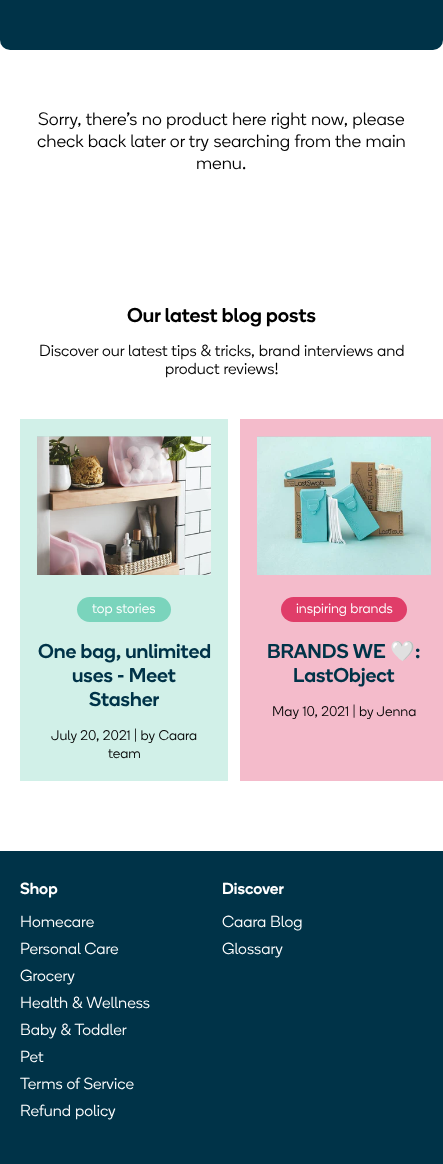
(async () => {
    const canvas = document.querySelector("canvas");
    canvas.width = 443;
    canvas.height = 1164;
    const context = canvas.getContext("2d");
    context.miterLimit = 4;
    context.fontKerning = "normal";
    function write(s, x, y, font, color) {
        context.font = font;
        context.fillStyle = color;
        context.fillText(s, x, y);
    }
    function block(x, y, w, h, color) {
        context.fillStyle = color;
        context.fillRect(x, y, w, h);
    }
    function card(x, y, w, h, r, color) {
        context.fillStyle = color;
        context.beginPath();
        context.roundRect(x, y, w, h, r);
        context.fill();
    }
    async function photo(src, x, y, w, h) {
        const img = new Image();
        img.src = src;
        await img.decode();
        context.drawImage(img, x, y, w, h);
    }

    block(0, 0, 443, 1164, "rgb(255, 255, 255)");
    context.fillStyle = "rgb(0, 51, 72)";
    context.beginPath();
    context.roundRect(0, 0, 443, 50, [0, 0, 10, 10]);
    context.fill();
    write("Sorry, there's no product here right now, please", 38, 125, "300 18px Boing", "rgb(0, 0, 0)");
    write("check back later or try searching from the main", 37, 147, "300 18px Boing", "rgb(0, 0, 0)");
    write("menu.", 196, 169, "300 18px Boing", "rgb(0, 0, 0)");
    write("Our latest blog posts", 127, 322, "500 20px Boing", "rgb(0, 0, 0)");
    write("Discover our latest tips & tricks, brand interviews and", 39, 356, "300 16px Boing", "rgb(0, 0, 0)");
    write("product reviews!", 165, 374, "300 16px Boing", "rgb(0, 0, 0)");
    block(20, 419, 208, 362, "rgb(209, 240, 232)");
    block(37, 436, 174, 1, "rgb(179, 230, 217)");
    await photo("media/1.png", 37, 436, 174, 139);
    card(77, 597, 94, 25, 12.5, "rgb(122, 212, 188)");
    write("top stories", 92, 613, "300 14px Boing", "rgb(255, 255, 255)");
    write("One bag, unlimited", 38, 658, "500 20px Boing", "rgb(0, 51, 72)");
    write("uses - Meet", 72, 682, "500 20px Boing", "rgb(0, 51, 72)");
    write("Stasher", 89, 706, "500 20px Boing", "rgb(0, 51, 72)");
    write("July 20, 2021 | by Caara", 51, 740, "300 14px Boing", "rgb(0, 0, 0)");
    write("team", 108, 758, "300 14px Boing", "rgb(0, 0, 0)");
    block(240, 419, 203, 362, "rgb(244, 187, 203)");
    block(257, 436, 174, 1, "rgb(237, 143, 169)");
    await photo("media/2.png", 257, 436, 174, 139);
    card(281, 597, 126, 25, 12.5, "rgb(224, 61, 105)");
    write("inspiring brands", 296, 613, "300 14px Boing", "rgb(255, 255, 255)");
    write("BRANDS WE", 267, 658, "500 20px Boing", "rgb(0, 51, 72)");
    write("🤍", 390, 658, "20px Noto Color Emoji", "rgb(0, 51, 72)");
    write(":", 415, 658, "500 20px Boing", "rgb(0, 51, 72)");
    write("LastObject", 293, 682, "500 20px Boing", "rgb(0, 51, 72)");
    write("May 10, 2021 | by Jenna", 272, 716, "300 14px Boing", "rgb(0, 0, 0)");
    block(0, 851, 443, 313, "rgb(0, 51, 72)");
    write("Shop", 20, 894, "500 16px Boing", "rgb(255, 255, 255)");
    write("Homecare", 20, 927, "300 16px Boing", "rgb(255, 255, 255)");
    write("Personal Care", 20, 954, "300 16px Boing", "rgb(255, 255, 255)");
    write("Grocery", 20, 981, "300 16px Boing", "rgb(255, 255, 255)");
    write("Health & Wellness", 20, 1008, "300 16px Boing", "rgb(255, 255, 255)");
    write("Baby & Toddler", 20, 1035, "300 16px Boing", "rgb(255, 255, 255)");
    write("Pet", 20, 1062, "300 16px Boing", "rgb(255, 255, 255)");
    write("Terms of Service", 20, 1089, "300 16px Boing", "rgb(255, 255, 255)");
    write("Refund policy", 20, 1116, "300 16px Boing", "rgb(255, 255, 255)");
    write("Discover", 222, 894, "500 16px Boing", "rgb(255, 255, 255)");
    write("Caara Blog", 222, 927, "300 16px Boing", "rgb(255, 255, 255)");
    write("Glossary", 222, 954, "300 16px Boing", "rgb(255, 255, 255)");
})();
